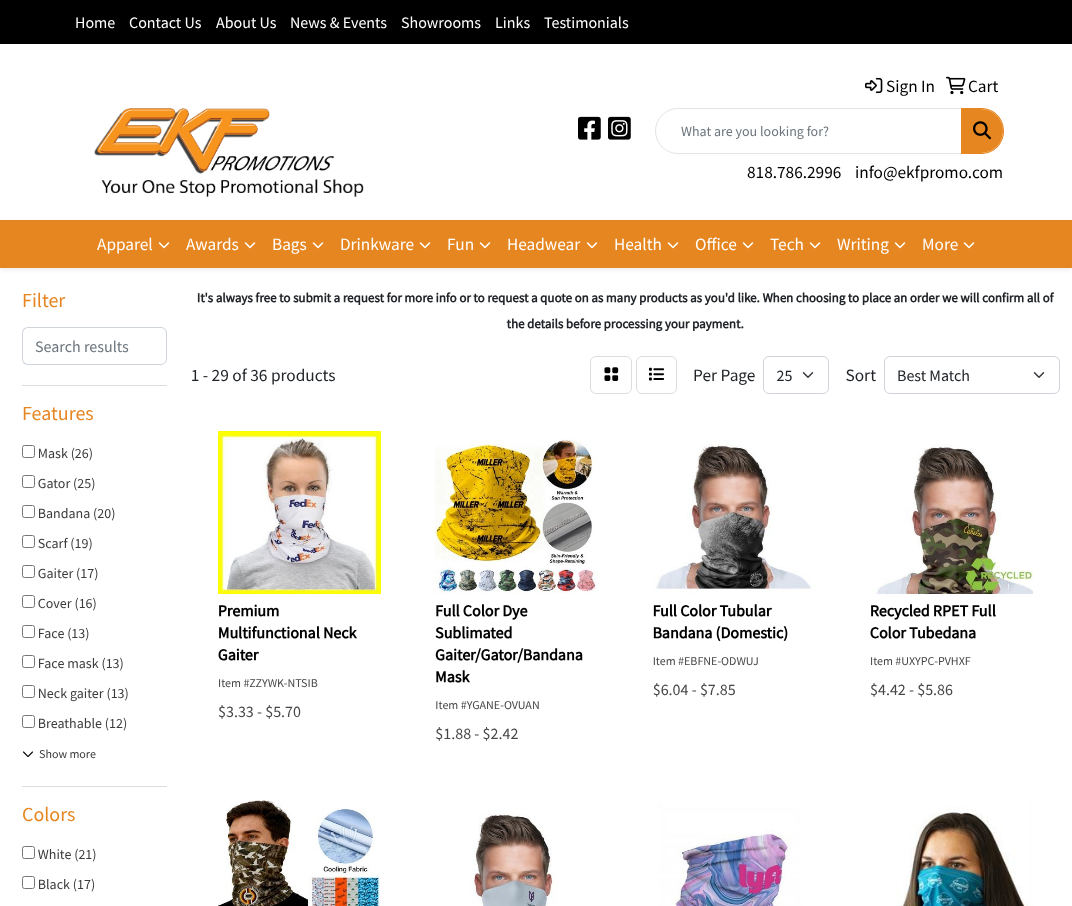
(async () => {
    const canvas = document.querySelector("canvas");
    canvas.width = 1072;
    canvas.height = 906;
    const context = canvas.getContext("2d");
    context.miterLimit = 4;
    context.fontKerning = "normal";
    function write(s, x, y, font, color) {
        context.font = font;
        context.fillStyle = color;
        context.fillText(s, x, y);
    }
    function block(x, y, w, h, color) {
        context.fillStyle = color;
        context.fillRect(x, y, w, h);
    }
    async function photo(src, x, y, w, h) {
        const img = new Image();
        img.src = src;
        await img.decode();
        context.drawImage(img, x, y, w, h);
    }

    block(0, 0, 1072, 906, "rgb(255, 255, 255)");
    block(0, 0, 1072, 44, "rgb(0, 0, 0)");
    write("Home", 75, 28, "16px Source Sans Pro", "rgb(255, 255, 255)");
    write("Contact Us", 129, 28, "16px Source Sans Pro", "rgb(255, 255, 255)");
    write("About Us", 216, 28, "16px Source Sans Pro", "rgb(255, 255, 255)");
    write("News & Events", 290, 28, "16px Source Sans Pro", "rgb(255, 255, 255)");
    write("Showrooms", 401, 28, "16px Source Sans Pro", "rgb(255, 255, 255)");
    write("Links", 495, 28, "16px Source Sans Pro", "rgb(255, 255, 255)");
    write("Testimonials", 544, 28, "16px Source Sans Pro", "rgb(255, 255, 255)");
    await photo("media/1.png", 94, 108, 270, 89);
    await photo("media/2.png", 865, 77, 18, 17);
    write("Sign In", 886, 92, "17.25px Source Sans Pro", "rgb(0, 0, 0)");
    await photo("media/3.png", 946, 76, 20, 19);
    write("Cart", 968, 92, "17.25px Source Sans Pro", "rgb(0, 0, 0)");
    await photo("media/4.png", 578, 116, 23, 24);
    await photo("media/5.png", 608, 116, 23, 24);
    context.beginPath();
    context.roundRect(655.5, 108.5, 306, 45, [22.5, 0, 0, 22.5]);
    context.strokeStyle = "rgb(228, 228, 228)";
    context.stroke();
    write("What are you looking for?", 681, 136, "14px Source Sans Pro", "rgb(108, 117, 125)");
    context.fillStyle = "rgb(230, 134, 33)";
    context.beginPath();
    context.roundRect(961, 109, 42, 44, [0, 22, 22, 0]);
    context.fill();
    context.beginPath();
    context.moveTo(961, 108);
    context.lineTo(981, 108);
    context.bezierCurveTo(994, 108, 1004, 118, 1004, 131);
    context.bezierCurveTo(1004, 144, 994, 154, 981, 154);
    context.lineTo(961, 154);
    context.closePath();
    context.moveTo(961, 109);
    context.lineTo(981, 109);
    context.bezierCurveTo(993, 109, 1003, 119, 1003, 131);
    context.bezierCurveTo(1003, 143, 993, 153, 981, 153);
    context.lineTo(961, 153);
    context.closePath();
    context.fill("evenodd");
    await photo("media/6.png", 973, 121, 18, 19);
    write("818.786.2996", 747, 178, "17.25px Source Sans Pro", "rgb(0, 0, 0)");
    write("info@ekfpromo.com", 855, 178, "17.25px Source Sans Pro", "rgb(0, 0, 0)");
    context.fillStyle = "rgba(0, 0, 0, 0.07)";
    context.filter = "blur(2px)";
    context.beginPath();
    context.rect(0, 222, 1072, 48);
    context.fill();
    context.filter = "none";
    block(0, 220, 1072, 48, "rgb(230, 134, 33)");
    write("Apparel", 97, 250, "17.25px Source Sans Pro", "rgb(255, 255, 255)");
    await photo("media/7.png", 158, 242, 12, 7);
    write("Awards", 186, 250, "17.25px Source Sans Pro", "rgb(255, 255, 255)");
    await photo("media/7.png", 244, 242, 12, 7);
    write("Bags", 272, 250, "17.25px Source Sans Pro", "rgb(255, 255, 255)");
    await photo("media/7.png", 312, 242, 12, 7);
    write("Drinkware", 340, 250, "17.25px Source Sans Pro", "rgb(255, 255, 255)");
    await photo("media/7.png", 419, 242, 12, 7);
    write("Fun", 447, 250, "17.25px Source Sans Pro", "rgb(255, 255, 255)");
    await photo("media/7.png", 479, 242, 12, 7);
    write("Headwear", 507, 250, "17.25px Source Sans Pro", "rgb(255, 255, 255)");
    await photo("media/7.png", 586, 242, 12, 7);
    write("Health", 614, 250, "17.25px Source Sans Pro", "rgb(255, 255, 255)");
    await photo("media/7.png", 667, 242, 12, 7);
    write("Office", 695, 250, "17.25px Source Sans Pro", "rgb(255, 255, 255)");
    await photo("media/7.png", 742, 242, 12, 7);
    write("Tech", 770, 250, "17.25px Source Sans Pro", "rgb(255, 255, 255)");
    await photo("media/7.png", 809, 242, 12, 7);
    write("Writing", 837, 250, "17.25px Source Sans Pro", "rgb(255, 255, 255)");
    await photo("media/7.png", 894, 242, 12, 7);
    write("More", 922, 250, "17.25px Source Sans Pro", "rgb(255, 255, 255)");
    await photo("media/7.png", 963, 242, 12, 7);
    await photo("media/8.png", 22, 292, 1038, 614);
})();
